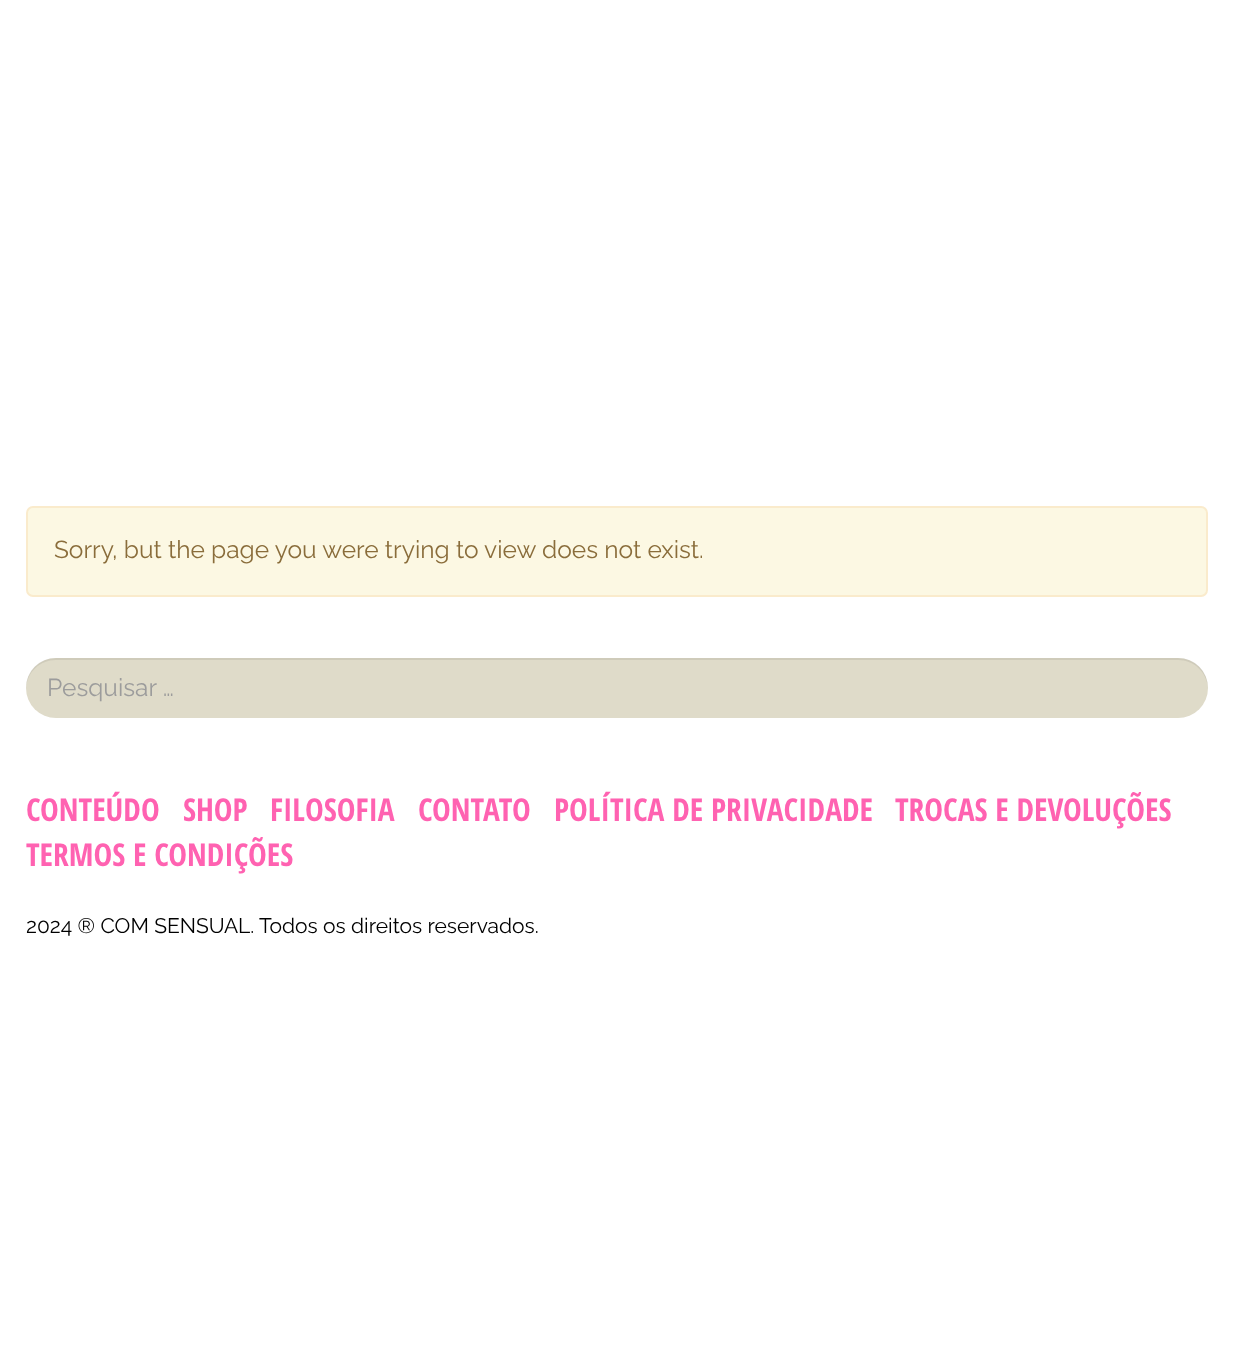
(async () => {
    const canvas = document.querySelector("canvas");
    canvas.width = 1233;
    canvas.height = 1366;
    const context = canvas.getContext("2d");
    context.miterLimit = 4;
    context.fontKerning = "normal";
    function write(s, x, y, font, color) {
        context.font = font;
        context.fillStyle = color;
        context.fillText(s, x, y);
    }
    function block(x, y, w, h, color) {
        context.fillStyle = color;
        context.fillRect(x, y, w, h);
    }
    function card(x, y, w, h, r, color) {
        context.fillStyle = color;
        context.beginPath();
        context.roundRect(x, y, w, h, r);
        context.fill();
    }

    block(0, 0, 1233, 1366, "rgb(255, 255, 255)");
    context.fillStyle = "rgb(252, 248, 227)";
    context.beginPath();
    context.roundRect(27, 507, 1180, 89, 6);
    context.fill();
    context.strokeStyle = "rgb(250, 235, 204)";
    context.lineWidth = 2;
    context.stroke();
    write("Sorry, but the page you were trying to view does not exist.", 54, 558, "24.5px Raleway", "rgb(138, 109, 59)");
    card(26, 658, 1182, 60, 30, "rgb(223, 219, 201)");
    context.fillStyle = "rgba(0, 0, 0, 0.07)";
    context.beginPath();
    context.moveTo(56, 660);
    context.lineTo(1178, 660);
    context.bezierCurveTo(1194, 660, 1207, 672, 1208, 689);
    context.lineTo(1208, 688);
    context.bezierCurveTo(1208, 671, 1195, 658, 1178, 658);
    context.lineTo(56, 658);
    context.bezierCurveTo(39, 658, 26, 671, 26, 688);
    context.lineTo(26, 689);
    context.bezierCurveTo(27, 672, 40, 660, 56, 660);
    context.closePath();
    context.fill();
    write("Pesquisar …", 47, 696, "24.5px Raleway", "rgb(156, 156, 156)");
    write("CONTEÚDO", 26, 821, "bold 31.5px Open Sans Condensed", "rgb(255, 98, 177)");
    write("SHOP", 183, 821, "bold 31.5px Open Sans Condensed", "rgb(255, 98, 177)");
    write("FILOSOFIA", 270, 821, "bold 31.5px Open Sans Condensed", "rgb(255, 98, 177)");
    write("CONTATO", 418, 821, "bold 31.5px Open Sans Condensed", "rgb(255, 98, 177)");
    write("POLÍTICA DE PRIVACIDADE", 554, 821, "bold 31.5px Open Sans Condensed", "rgb(255, 98, 177)");
    write("TROCAS E DEVOLUÇÕES", 895, 821, "bold 31.5px Open Sans Condensed", "rgb(255, 98, 177)");
    write("TERMOS E CONDIÇÕES", 26, 866, "bold 31.5px Open Sans Condensed", "rgb(255, 98, 177)");
    write("2024 ® COM SENSUAL. Todos os direitos reservados.", 26, 933, "21px Raleway", "rgb(0, 0, 0)");
})();
